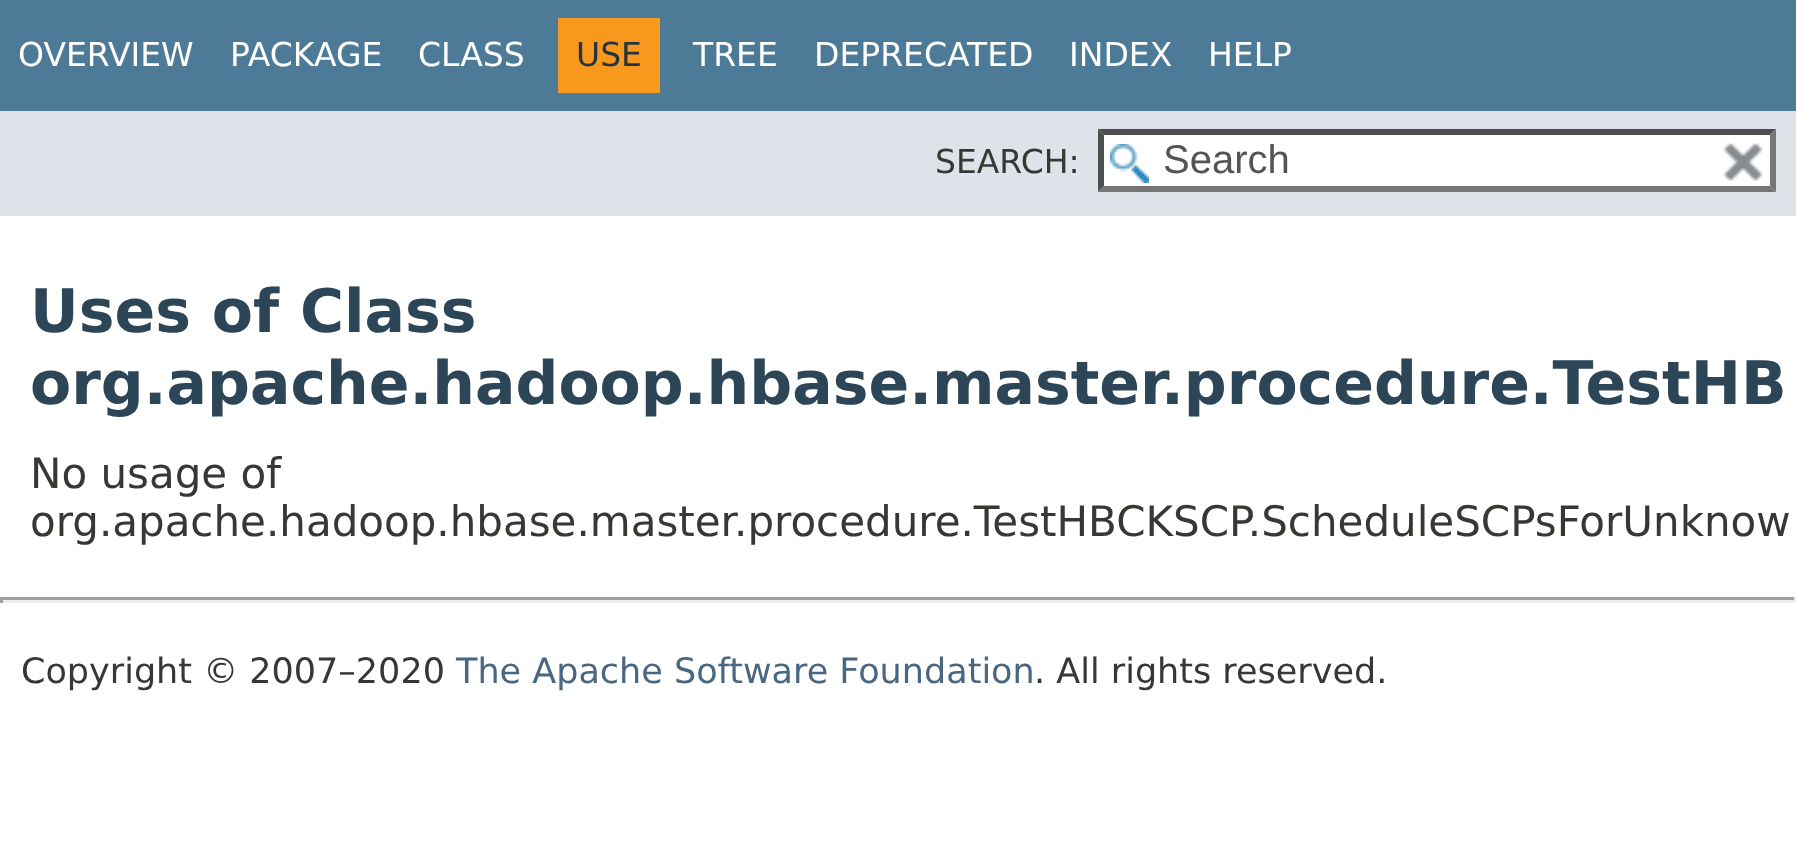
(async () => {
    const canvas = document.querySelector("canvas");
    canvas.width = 1796;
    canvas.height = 844;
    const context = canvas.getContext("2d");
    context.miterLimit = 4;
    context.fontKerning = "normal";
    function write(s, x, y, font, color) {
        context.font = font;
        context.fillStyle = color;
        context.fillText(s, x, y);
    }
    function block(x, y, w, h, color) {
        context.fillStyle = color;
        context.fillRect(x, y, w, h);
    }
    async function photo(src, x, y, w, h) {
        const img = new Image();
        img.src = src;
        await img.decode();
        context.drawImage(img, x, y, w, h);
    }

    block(0, 0, 1796, 844, "rgb(255, 255, 255)");
    block(0, 0, 1796, 111, "rgb(77, 122, 151)");
    write("OVERVIEW", 18, 66, "33px DejaVu Sans", "rgb(255, 255, 255)");
    write("PACKAGE", 230, 66, "33px DejaVu Sans", "rgb(255, 255, 255)");
    write("CLASS", 418, 66, "33px DejaVu Sans", "rgb(255, 255, 255)");
    block(558, 18, 102, 75, "rgb(248, 152, 29)");
    write("USE", 576, 66, "33px DejaVu Sans", "rgb(37, 52, 65)");
    write("TREE", 693, 66, "33px DejaVu Sans", "rgb(255, 255, 255)");
    write("DEPRECATED", 814, 66, "33px DejaVu Sans", "rgb(255, 255, 255)");
    write("INDEX", 1069, 66, "33px DejaVu Sans", "rgb(255, 255, 255)");
    write("HELP", 1208, 66, "33px DejaVu Sans", "rgb(255, 255, 255)");
    block(0, 111, 1796, 105, "rgb(222, 227, 233)");
    write("SEARCH:", 935, 173, "33px DejaVu Sans", "rgb(53, 56, 51)");
    block(1098, 129, 678, 63, "rgb(255, 255, 255)");
    await photo("media/1.png", 1110, 144, 39, 39);
    context.fillStyle = "rgb(79, 79, 79)";
    context.beginPath();
    context.moveTo(1098, 129);
    context.lineTo(1776, 129);
    context.lineTo(1770, 135);
    context.lineTo(1104, 135);
    context.closePath();
    context.fill();
    context.fillStyle = "rgb(118, 118, 118)";
    context.beginPath();
    context.moveTo(1776, 129);
    context.lineTo(1776, 192);
    context.lineTo(1770, 186);
    context.lineTo(1770, 135);
    context.closePath();
    context.fill();
    context.beginPath();
    context.moveTo(1776, 192);
    context.lineTo(1098, 192);
    context.lineTo(1104, 186);
    context.lineTo(1770, 186);
    context.closePath();
    context.fill();
    context.fillStyle = "rgb(79, 79, 79)";
    context.beginPath();
    context.moveTo(1098, 192);
    context.lineTo(1098, 129);
    context.lineTo(1104, 135);
    context.lineTo(1104, 186);
    context.closePath();
    context.fill();
    write("Search", 1163, 173, "40px Liberation Sans", "rgb(84, 84, 84)");
    await photo("media/2.png", 1723, 143, 40, 38);
    write("Uses of Class", 30, 332, "bold 60px DejaVu Sans", "rgb(44, 69, 87)");
    write("org.apache.hadoop.hbase.master.procedure.TestHB", 30, 404, "bold 60px DejaVu Sans", "rgb(44, 69, 87)");
    write("No usage of", 30, 488, "42px DejaVu Sans", "rgb(53, 56, 51)");
    write("org.apache.hadoop.hbase.master.procedure.TestHBCKSCP.ScheduleSCPsForUnknow", 30, 536, "42px DejaVu Sans", "rgb(53, 56, 51)");
    block(0, 597, 1796, 3, "rgb(159, 159, 159)");
    block(1794, 597, 2, 6, "rgb(238, 238, 238)");
    block(0, 600, 1796, 3, "rgb(238, 238, 238)");
    block(0, 597, 3, 6, "rgb(159, 159, 159)");
    write("Copyright © 2007–2020", 21, 683, "35px DejaVu Sans", "rgb(53, 56, 51)");
    write("The Apache Software Foundation", 456, 683, "35px DejaVu Sans", "rgb(74, 103, 130)");
    write(". All rights reserved.", 1034, 683, "35px DejaVu Sans", "rgb(53, 56, 51)");
})();
